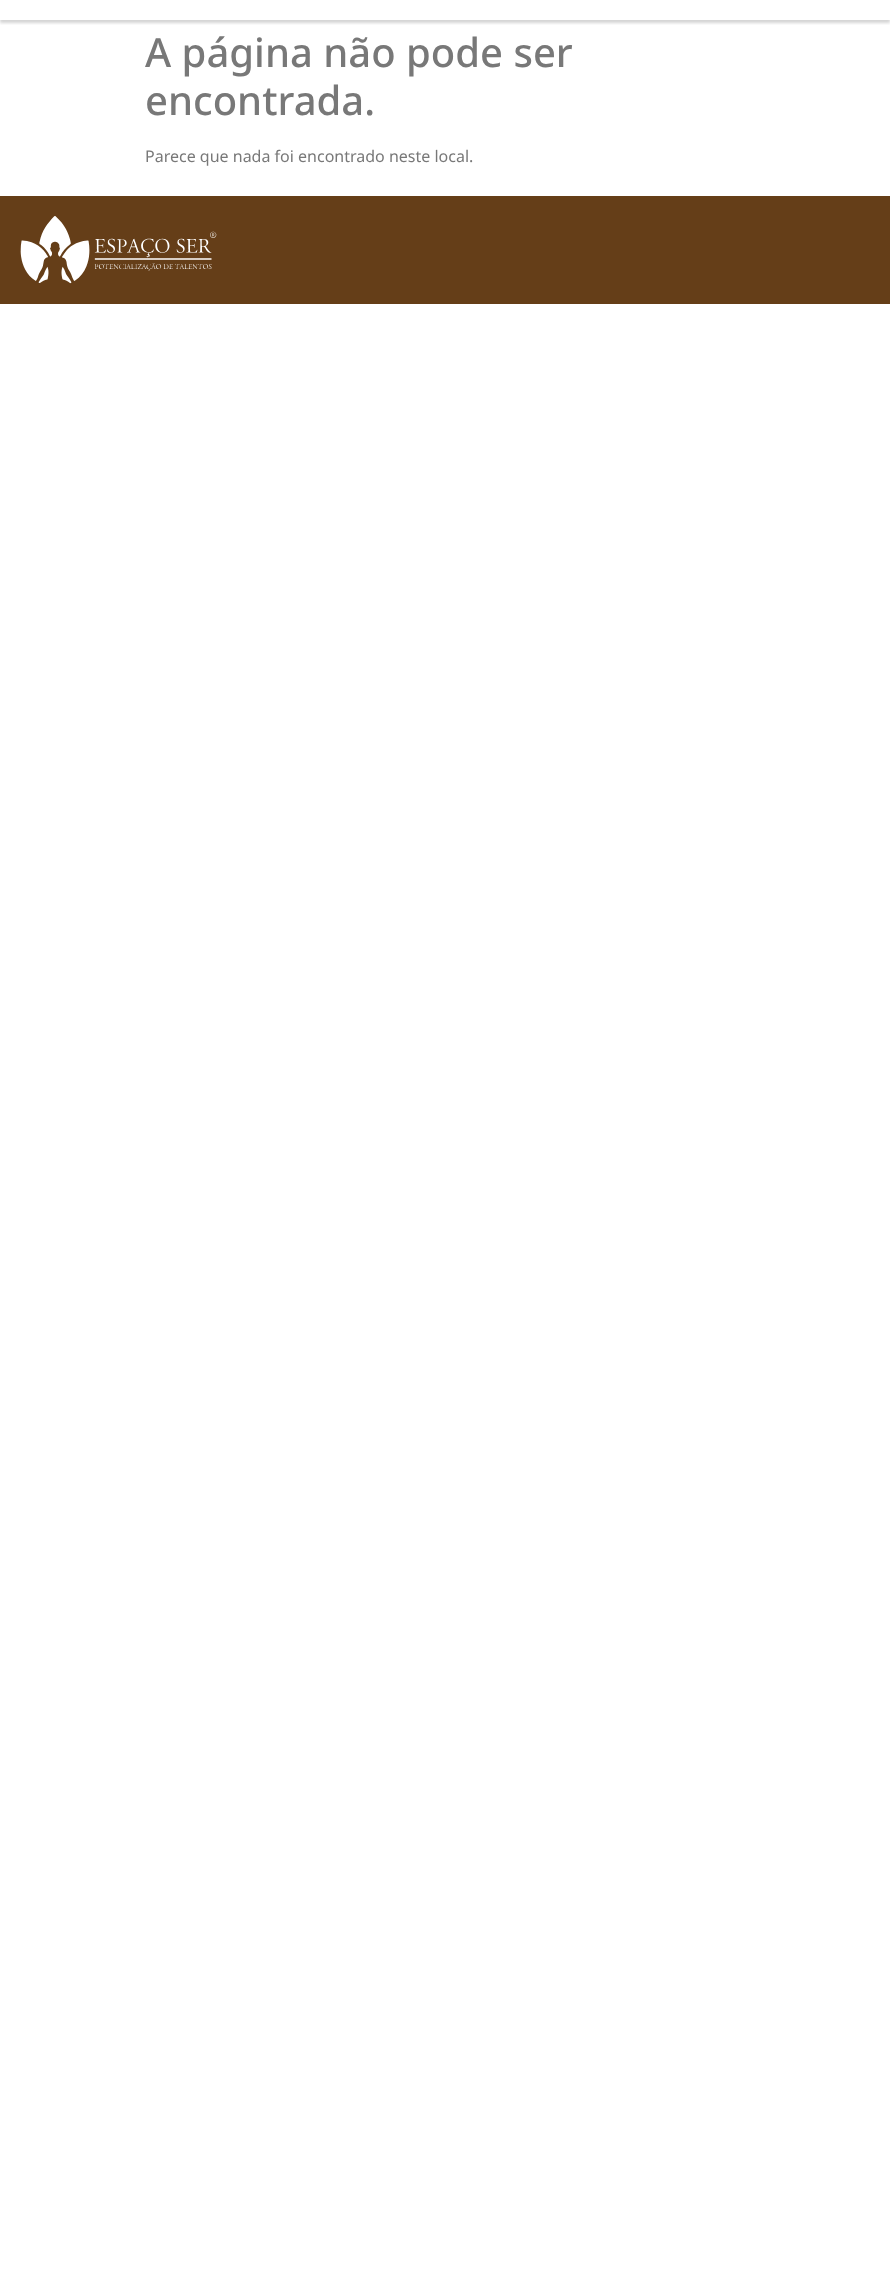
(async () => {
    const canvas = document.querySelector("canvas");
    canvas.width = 890;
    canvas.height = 2296;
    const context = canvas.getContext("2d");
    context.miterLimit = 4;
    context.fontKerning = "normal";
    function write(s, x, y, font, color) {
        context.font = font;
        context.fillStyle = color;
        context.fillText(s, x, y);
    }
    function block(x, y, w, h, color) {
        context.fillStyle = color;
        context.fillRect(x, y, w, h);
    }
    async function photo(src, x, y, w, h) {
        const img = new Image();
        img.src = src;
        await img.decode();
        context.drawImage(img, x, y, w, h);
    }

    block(0, 0, 890, 2296, "rgb(255, 255, 255)");
    context.save();
    context.beginPath();
    context.rect(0, 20, 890, 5);
    context.clip();
    context.fillStyle = "rgba(0, 0, 0, 0.17)";
    context.filter = "blur(1.5px)";
    context.beginPath();
    context.rect(0, 3, 890, 20);
    context.fill();
    context.filter = "none";
    context.restore();
    write("A página não pode ser", 145, 67, "500 40px Noto Sans", "rgb(120, 120, 120)");
    write("encontrada.", 145, 115, "500 40px Noto Sans", "rgb(120, 120, 120)");
    write("Parece que nada foi encontrado neste local.", 145, 162, "16px Noto Sans", "rgb(120, 120, 120)");
    block(0, 196, 890, 108, "rgb(101, 62, 24)");
    await photo("media/1.png", 20, 216, 197, 68);
})();
